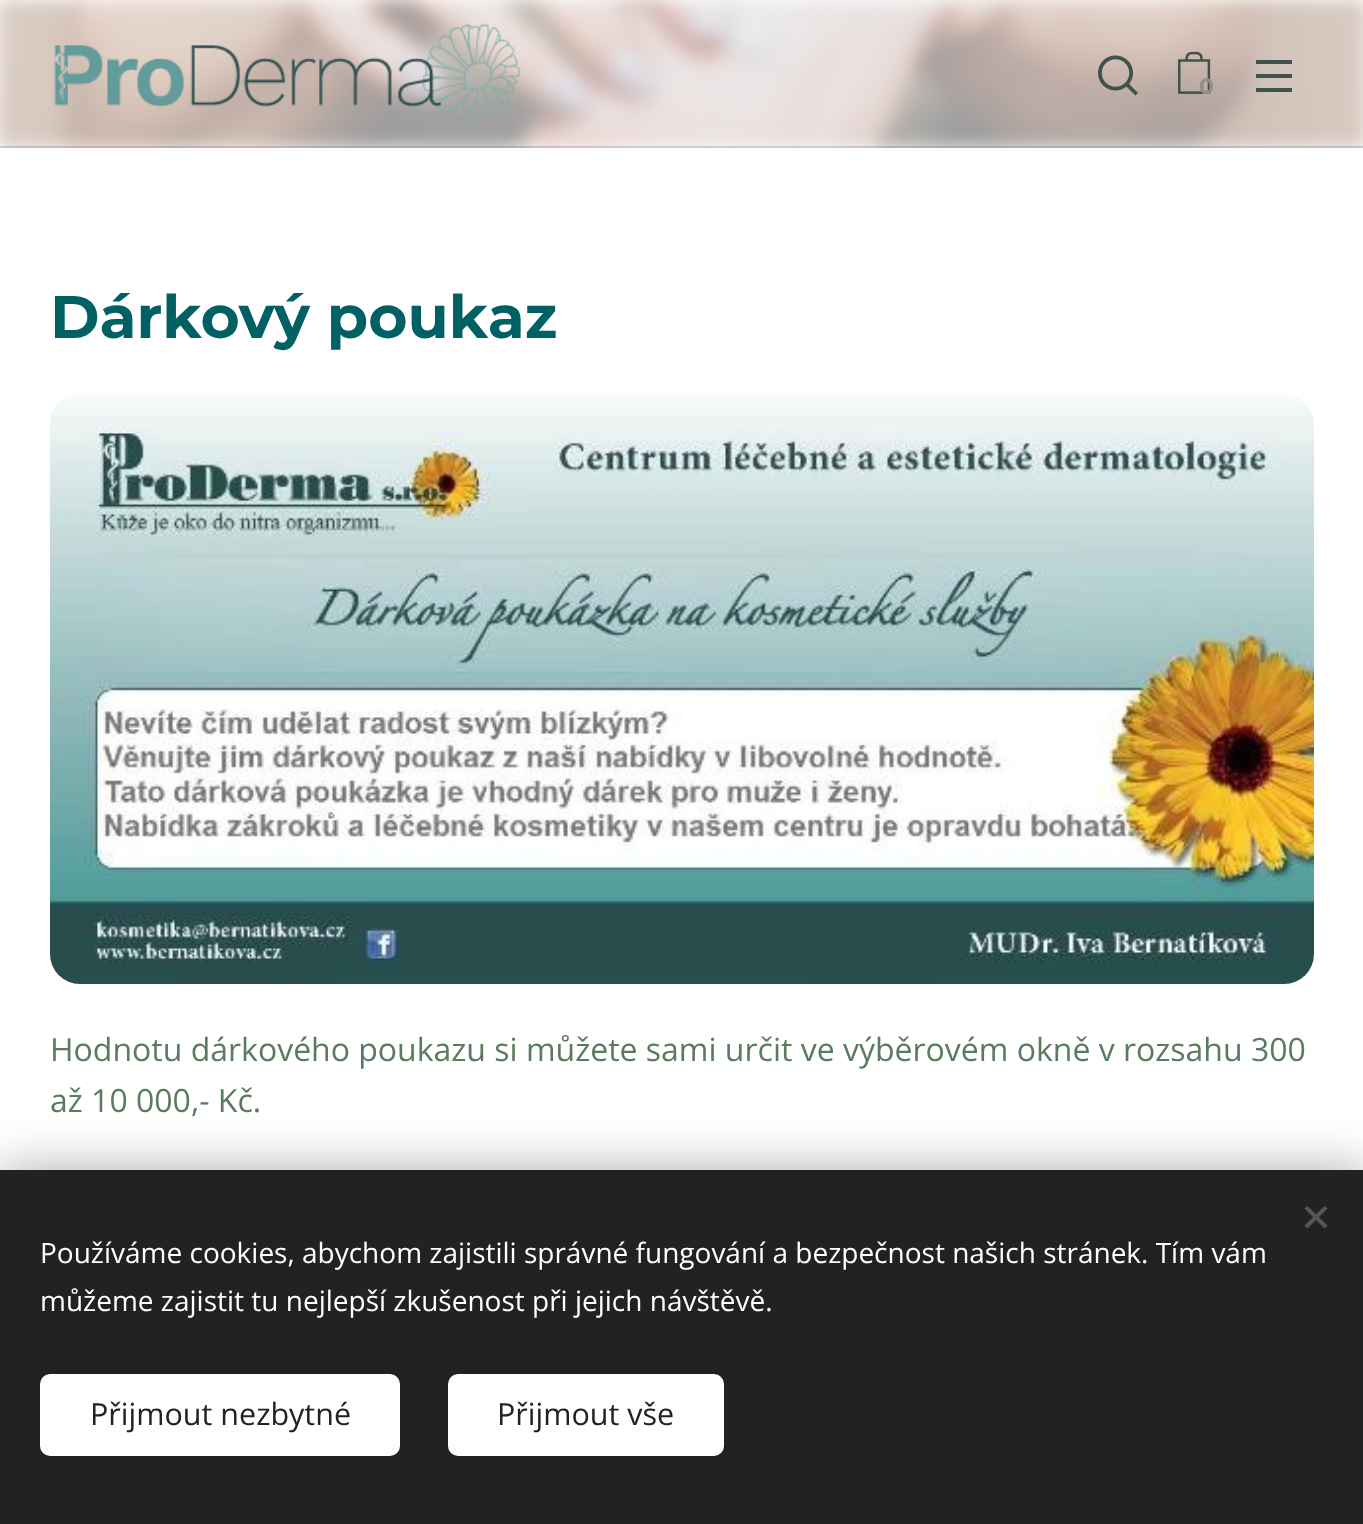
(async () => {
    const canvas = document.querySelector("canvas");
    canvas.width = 1363;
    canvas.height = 1524;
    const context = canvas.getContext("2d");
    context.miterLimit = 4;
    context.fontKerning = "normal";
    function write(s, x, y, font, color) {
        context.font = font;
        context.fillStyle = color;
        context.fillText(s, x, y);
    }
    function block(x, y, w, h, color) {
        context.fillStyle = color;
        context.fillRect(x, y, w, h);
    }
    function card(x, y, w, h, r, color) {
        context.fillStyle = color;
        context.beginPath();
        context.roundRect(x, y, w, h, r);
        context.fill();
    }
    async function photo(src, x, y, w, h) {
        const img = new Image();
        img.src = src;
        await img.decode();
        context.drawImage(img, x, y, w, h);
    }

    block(0, 0, 1363, 1524, "rgb(255, 255, 255)");
    await photo("media/1.png", 0, 0, 1363, 148);
    await photo("media/2.png", 54, 23, 467, 102);
    await photo("media/3.png", 1098, 55, 40, 41);
    await photo("media/4.png", 1178, 51, 33, 43);
    write("0", 1199, 94, "bold 22px Montserrat", "rgb(149, 143, 137)");
    block(1256, 74, 36, 4, "rgb(63, 82, 76)");
    block(1256, 60, 36, 4, "rgb(63, 82, 76)");
    block(1256, 88, 36, 4, "rgb(63, 82, 76)");
    block(0, 146, 1363, 2, "rgba(0, 0, 0, 0.15)");
    write("Dárkový poukaz", 50, 338, "bold 60px Montserrat", "rgb(0, 96, 100)");
    await photo("media/5.png", 50, 394, 1264, 590);
    write("Hodnotu dárkového poukazu si můžete sami určit ve výběrovém okně v rozsahu 300", 50, 1061, "32px Open Sans", "rgb(90, 123, 94)");
    write("až 10 000,- Kč.", 50, 1112, "32px Open Sans", "rgb(90, 123, 94)");
    context.fillStyle = "rgba(0, 0, 0, 0.33)";
    context.filter = "blur(25px)";
    context.beginPath();
    context.rect(0, 1170, 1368, 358);
    context.fill();
    context.filter = "none";
    block(0, 1170, 1363, 354, "rgb(34, 34, 34)");
    context.fillStyle = "rgb(85, 85, 85)";
    context.beginPath();
    context.moveTo(1304.5, 1225.5);
    context.lineTo(1324.5, 1206);
    context.lineTo(1327.5, 1208.5);
    context.lineTo(1307.5, 1228.5);
    context.closePath();
    context.fill();
    context.beginPath();
    context.moveTo(1307.5, 1206);
    context.lineTo(1327.5, 1225.5);
    context.lineTo(1324.5, 1228.5);
    context.lineTo(1304.5, 1208.5);
    context.closePath();
    context.fill();
    write("Používáme cookies, abychom zajistili správné fungování a bezpečnost našich stránek. Tím vám", 40, 1263, "28px Open Sans", "rgb(255, 255, 255)");
    write("můžeme zajistit tu nejlepší zkušenost při jejich návštěvě.", 40, 1311, "28px Open Sans", "rgb(255, 255, 255)");
    card(40, 1374, 360, 82, 10, "rgb(255, 255, 255)");
    write("Přijmout nezbytné", 90, 1425, "30.5px Open Sans", "rgb(34, 34, 34)");
    card(448, 1374, 276, 82, 10, "rgb(255, 255, 255)");
    write("Přijmout vše", 497, 1425, "30.5px Open Sans", "rgb(34, 34, 34)");
})();
